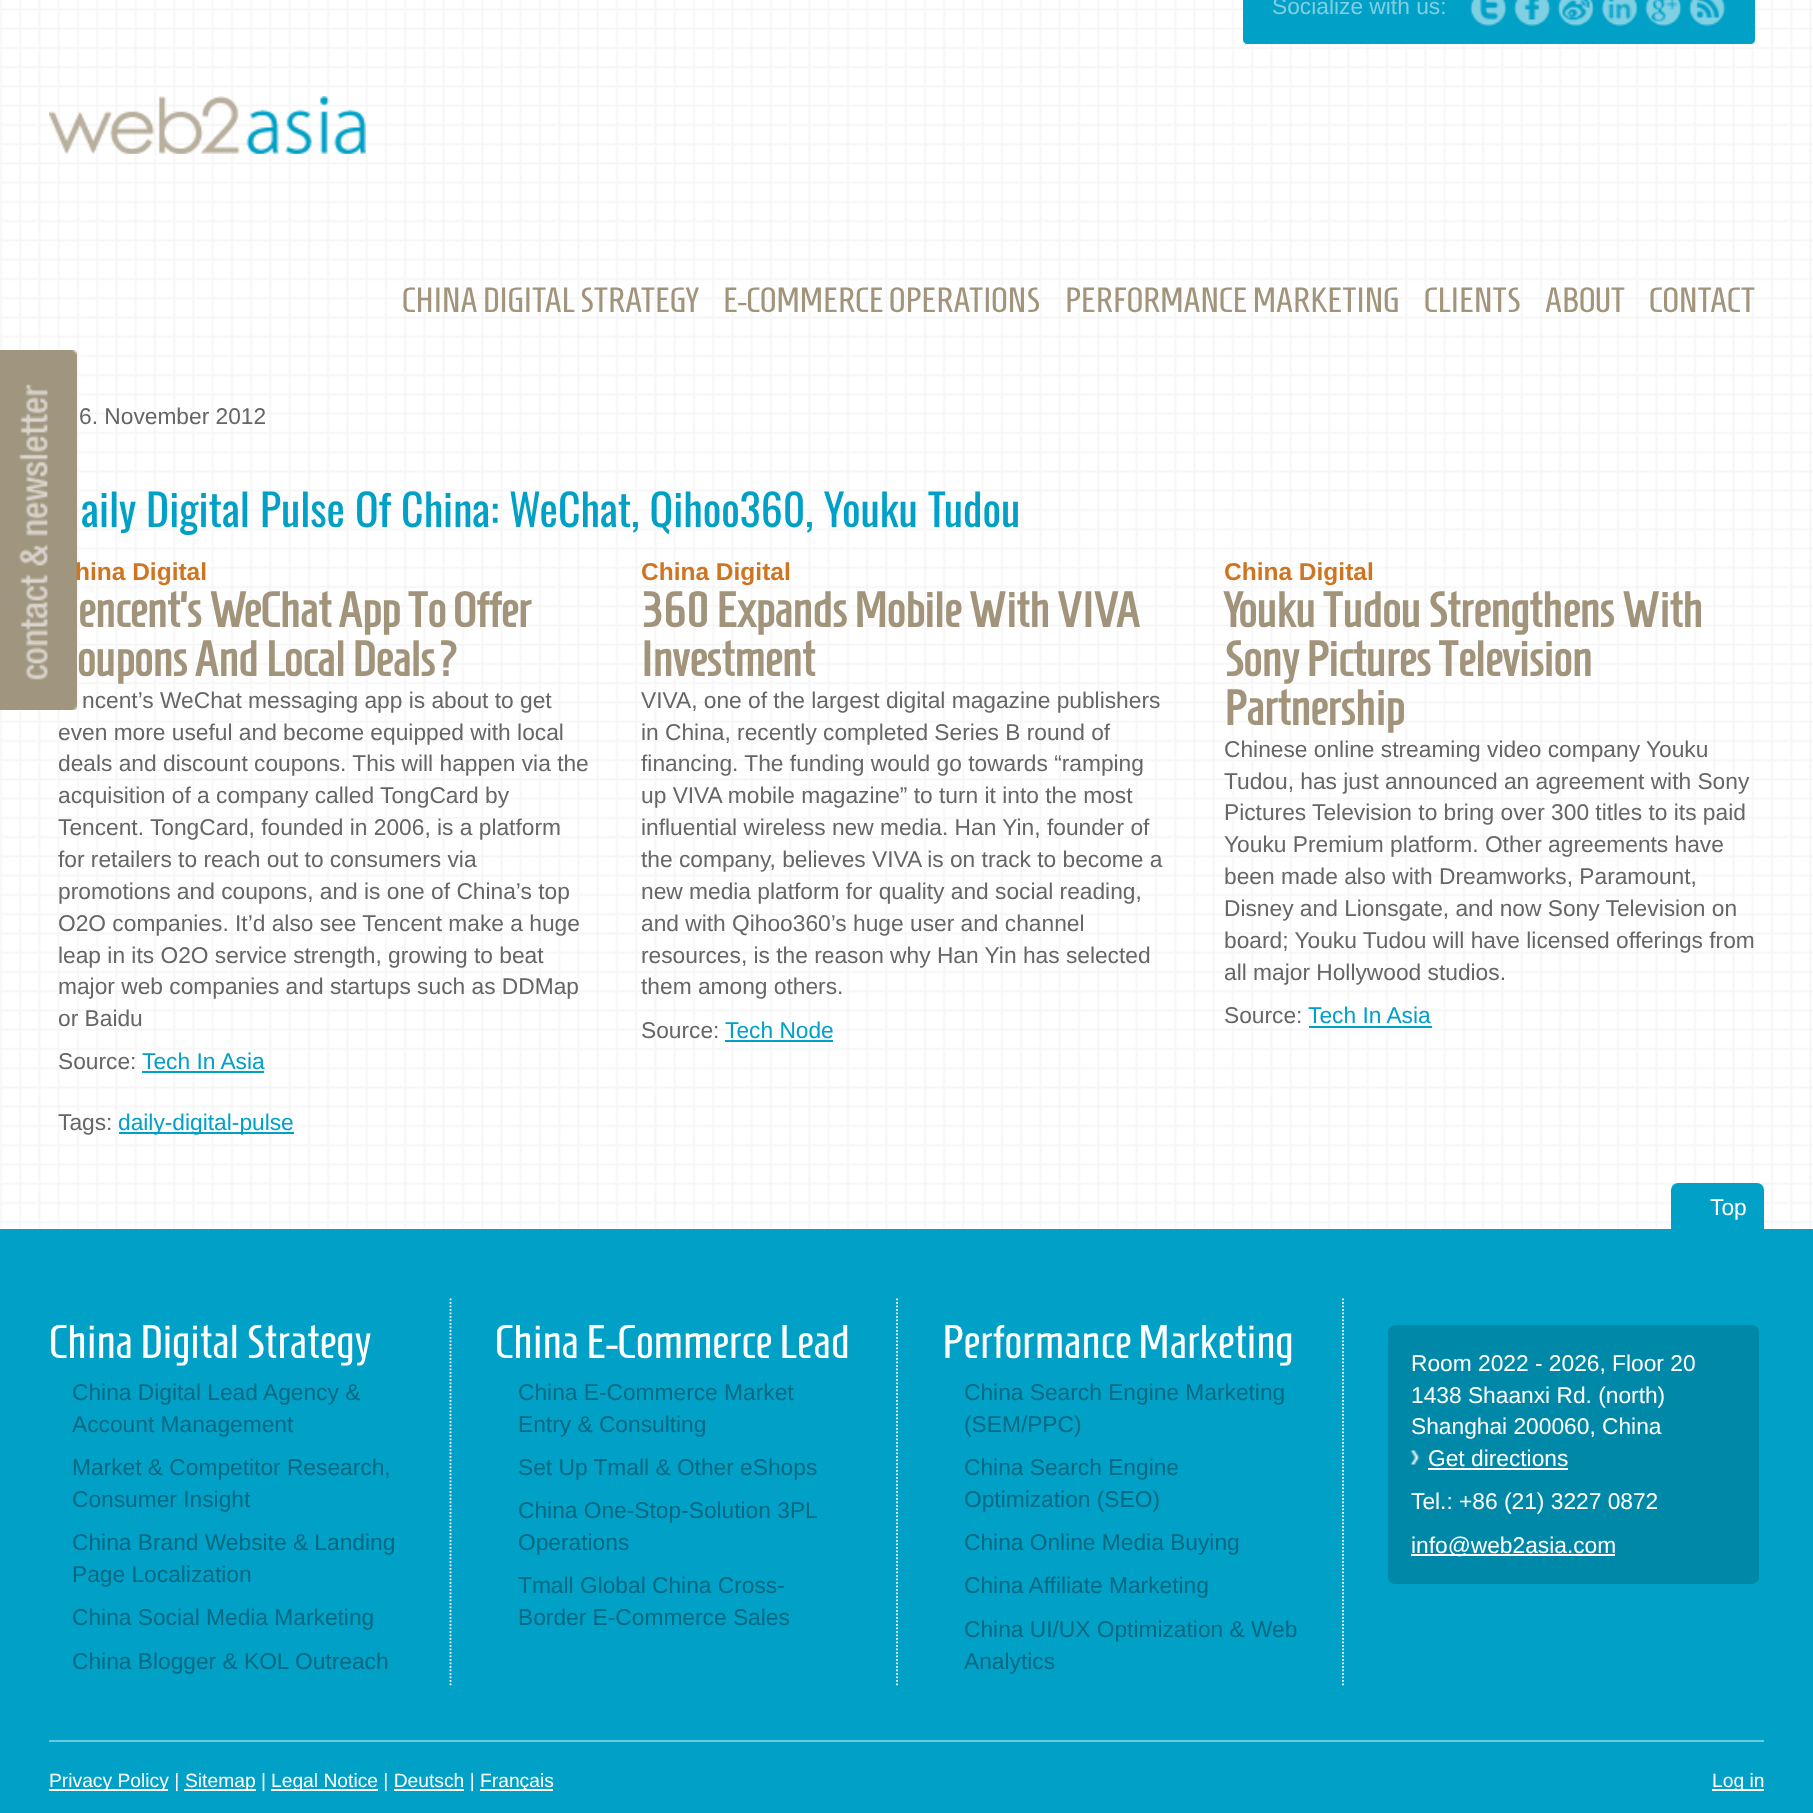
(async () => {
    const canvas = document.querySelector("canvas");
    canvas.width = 1813;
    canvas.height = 1813;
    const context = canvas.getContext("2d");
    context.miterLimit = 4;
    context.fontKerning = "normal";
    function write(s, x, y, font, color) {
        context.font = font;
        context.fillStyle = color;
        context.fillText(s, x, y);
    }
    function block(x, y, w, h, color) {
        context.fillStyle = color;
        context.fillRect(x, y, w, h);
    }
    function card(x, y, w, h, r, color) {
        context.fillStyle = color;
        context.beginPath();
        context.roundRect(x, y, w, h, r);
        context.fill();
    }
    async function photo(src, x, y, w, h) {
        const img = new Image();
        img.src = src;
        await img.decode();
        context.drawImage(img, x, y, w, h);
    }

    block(0, 0, 1813, 1813, "rgb(255, 255, 255)");
    await photo("media/1.png", 0, 0, 1813, 1229);
    await photo("media/2.png", 0, 350, 77, 360);
    context.fillStyle = "rgb(1, 160, 199)";
    context.beginPath();
    context.moveTo(1243, -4);
    context.lineTo(1755, -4);
    context.lineTo(1755, 40);
    context.bezierCurveTo(1755, 42, 1753, 44, 1751, 44);
    context.lineTo(1247, 44);
    context.bezierCurveTo(1245, 44, 1243, 42, 1243, 40);
    context.closePath();
    context.fill();
    write("Socialize with us:", 1272, 14, "22.75px Liberation Sans", "rgb(127, 207, 227)");
    await photo("media/3.png", 1470, 0, 37, 26);
    await photo("media/4.png", 1513, 0, 38, 26);
    await photo("media/5.png", 1557, 0, 38, 26);
    await photo("media/6.png", 1601, 0, 37, 26);
    await photo("media/7.png", 1645, 0, 37, 26);
    await photo("media/8.png", 1688, 0, 38, 26);
    await photo("media/9.png", 49, 96, 317, 58);
    write("CHINA DIGITAL STRATEGY", 402, 312, "35px Homenaje", "rgb(161, 148, 122)");
    write("E-COMMERCE OPERATIONS", 723, 312, "35px Homenaje", "rgb(161, 148, 122)");
    write("PERFORMANCE MARKETING", 1065, 312, "35px Homenaje", "rgb(161, 148, 122)");
    write("CLIENTS", 1424, 312, "35px Homenaje", "rgb(161, 148, 122)");
    write("ABOUT", 1545, 312, "35px Homenaje", "rgb(161, 148, 122)");
    write("CONTACT", 1649, 312, "35px Homenaje", "rgb(161, 148, 122)");
    write("6. November 2012", 79, 424, "22.75px Liberation Sans", "rgb(102, 102, 102)");
    write("aily Digital Pulse Of China: WeChat, Qihoo360, Youku Tudou", 81, 527, "43.75px Oswald", "rgb(1, 160, 199)");
    write("hina Digital", 75, 580, "bold 24.5px Liberation Sans", "rgb(207, 117, 34)");
    write("encent’s WeChat App To Offer", 78, 627, "bold 49px Homenaje", "rgb(161, 148, 122)");
    write("oupons And Local Deals?", 77, 676, "bold 49px Homenaje", "rgb(161, 148, 122)");
    write("ncent’s WeChat messaging app is about to get", 82, 708, "22.75px Liberation Sans", "rgb(102, 102, 102)");
    write("even more useful and become equipped with local", 58, 740, "22.75px Liberation Sans", "rgb(102, 102, 102)");
    write("deals and discount coupons. This will happen via the", 58, 771, "22.75px Liberation Sans", "rgb(102, 102, 102)");
    write("acquisition of a company called TongCard by", 58, 803, "22.75px Liberation Sans", "rgb(102, 102, 102)");
    write("Tencent. TongCard, founded in 2006, is a platform", 58, 835, "22.75px Liberation Sans", "rgb(102, 102, 102)");
    write("for retailers to reach out to consumers via", 58, 867, "22.75px Liberation Sans", "rgb(102, 102, 102)");
    write("promotions and coupons, and is one of China’s top", 58, 899, "22.75px Liberation Sans", "rgb(102, 102, 102)");
    write("O2O companies. It’d also see Tencent make a huge", 58, 931, "22.75px Liberation Sans", "rgb(102, 102, 102)");
    write("leap in its O2O service strength, growing to beat", 58, 963, "22.75px Liberation Sans", "rgb(102, 102, 102)");
    write("major web companies and startups such as DDMap", 58, 994, "22.75px Liberation Sans", "rgb(102, 102, 102)");
    write("or Baidu", 58, 1026, "22.75px Liberation Sans", "rgb(102, 102, 102)");
    write("Source:", 58, 1069, "22.75px Liberation Sans", "rgb(102, 102, 102)");
    write("Tech In Asia", 142, 1069, "22.75px Liberation Sans", "rgb(1, 160, 199)");
    block(142, 1071, 122, 2, "rgb(1, 160, 199)");
    write("China Digital", 641, 580, "bold 24.5px Liberation Sans", "rgb(207, 117, 34)");
    write("360 Expands Mobile With VIVA", 641, 627, "bold 49px Homenaje", "rgb(161, 148, 122)");
    write("Investment", 641, 676, "bold 49px Homenaje", "rgb(161, 148, 122)");
    write("VIVA, one of the largest digital magazine publishers", 641, 708, "22.75px Liberation Sans", "rgb(102, 102, 102)");
    write("in China, recently completed Series B round of", 641, 740, "22.75px Liberation Sans", "rgb(102, 102, 102)");
    write("financing. The funding would go towards “ramping", 641, 771, "22.75px Liberation Sans", "rgb(102, 102, 102)");
    write("up VIVA mobile magazine” to turn it into the most", 641, 803, "22.75px Liberation Sans", "rgb(102, 102, 102)");
    write("influential wireless new media. Han Yin, founder of", 641, 835, "22.75px Liberation Sans", "rgb(102, 102, 102)");
    write("the company, believes VIVA is on track to become a", 641, 867, "22.75px Liberation Sans", "rgb(102, 102, 102)");
    write("new media platform for quality and social reading,", 641, 899, "22.75px Liberation Sans", "rgb(102, 102, 102)");
    write("and with Qihoo360’s huge user and channel", 641, 931, "22.75px Liberation Sans", "rgb(102, 102, 102)");
    write("resources, is the reason why Han Yin has selected", 641, 963, "22.75px Liberation Sans", "rgb(102, 102, 102)");
    write("them among others.", 641, 994, "22.75px Liberation Sans", "rgb(102, 102, 102)");
    write("Source:", 641, 1038, "22.75px Liberation Sans", "rgb(102, 102, 102)");
    write("Tech Node", 725, 1038, "22.75px Liberation Sans", "rgb(1, 160, 199)");
    block(725, 1040, 108, 2, "rgb(1, 160, 199)");
    write("China Digital", 1224, 580, "bold 24.5px Liberation Sans", "rgb(207, 117, 34)");
    write("Youku Tudou Strengthens With", 1224, 627, "bold 49px Homenaje", "rgb(161, 148, 122)");
    write("Sony Pictures Television", 1224, 676, "bold 49px Homenaje", "rgb(161, 148, 122)");
    write("Partnership", 1224, 725, "bold 49px Homenaje", "rgb(161, 148, 122)");
    write("Chinese online streaming video company Youku", 1224, 757, "22.75px Liberation Sans", "rgb(102, 102, 102)");
    write("Tudou, has just announced an agreement with Sony", 1224, 789, "22.75px Liberation Sans", "rgb(102, 102, 102)");
    write("Pictures Television to bring over 300 titles to its paid", 1224, 820, "22.75px Liberation Sans", "rgb(102, 102, 102)");
    write("Youku Premium platform. Other agreements have", 1224, 852, "22.75px Liberation Sans", "rgb(102, 102, 102)");
    write("been made also with Dreamworks, Paramount,", 1224, 884, "22.75px Liberation Sans", "rgb(102, 102, 102)");
    write("Disney and Lionsgate, and now Sony Television on", 1224, 916, "22.75px Liberation Sans", "rgb(102, 102, 102)");
    write("board; Youku Tudou will have licensed offerings from", 1224, 948, "22.75px Liberation Sans", "rgb(102, 102, 102)");
    write("all major Hollywood studios.", 1224, 980, "22.75px Liberation Sans", "rgb(102, 102, 102)");
    write("Source:", 1224, 1023, "22.75px Liberation Sans", "rgb(102, 102, 102)");
    write("Tech In Asia", 1308, 1023, "22.75px Liberation Sans", "rgb(1, 160, 199)");
    block(1309, 1026, 123, 2, "rgb(1, 160, 199)");
    write("Tags:", 58, 1130, "22.75px Liberation Sans", "rgb(102, 102, 102)");
    block(119, 1132, 175, 2, "rgb(1, 160, 199)");
    write("daily-digital-pulse", 118, 1130, "22.75px Liberation Sans", "rgb(1, 160, 199)");
    context.beginPath();
    context.roundRect(1671, 1183, 93, 46, [7, 7, 0, 0]);
    context.fill();
    write("Top", 1710, 1215, "22.75px Liberation Sans", "rgb(255, 255, 255)");
    block(0, 1229, 1813, 584, "rgb(1, 160, 199)");
    write("China Digital Strategy", 49, 1358, "47.25px Homenaje", "rgb(255, 255, 255)");
    write("China Digital Lead Agency &", 72, 1400, "22.75px Liberation Sans", "rgb(2, 105, 131)");
    write("Account Management", 72, 1432, "22.75px Liberation Sans", "rgb(2, 105, 131)");
    write("Market & Competitor Research,", 72, 1475, "22.75px Liberation Sans", "rgb(2, 105, 131)");
    write("Consumer Insight", 72, 1507, "22.75px Liberation Sans", "rgb(2, 105, 131)");
    write("China Brand Website & Landing", 72, 1550, "22.75px Liberation Sans", "rgb(2, 105, 131)");
    write("Page Localization", 72, 1582, "22.75px Liberation Sans", "rgb(2, 105, 131)");
    write("China Social Media Marketing", 72, 1625, "22.75px Liberation Sans", "rgb(2, 105, 131)");
    write("China Blogger & KOL Outreach", 72, 1669, "22.75px Liberation Sans", "rgb(2, 105, 131)");
    context.beginPath();
    context.moveTo(450.5, 1298.5);
    context.lineTo(450.5, 1687);
    context.strokeStyle = "rgb(255, 255, 255)";
    context.lineWidth = 1.8;
    context.setLineDash([1.75, 1.75]);
    context.stroke();
    write("China E-Commerce Lead", 495, 1358, "47.25px Homenaje", "rgb(255, 255, 255)");
    write("China E-Commerce Market", 518, 1400, "22.75px Liberation Sans", "rgb(2, 105, 131)");
    write("Entry & Consulting", 518, 1432, "22.75px Liberation Sans", "rgb(2, 105, 131)");
    write("Set Up Tmall & Other eShops", 518, 1475, "22.75px Liberation Sans", "rgb(2, 105, 131)");
    write("China One-Stop-Solution 3PL", 518, 1518, "22.75px Liberation Sans", "rgb(2, 105, 131)");
    write("Operations", 518, 1550, "22.75px Liberation Sans", "rgb(2, 105, 131)");
    write("Tmall Global China Cross-", 518, 1593, "22.75px Liberation Sans", "rgb(2, 105, 131)");
    write("Border E-Commerce Sales", 518, 1625, "22.75px Liberation Sans", "rgb(2, 105, 131)");
    context.beginPath();
    context.moveTo(897, 1298.5);
    context.lineTo(897, 1687);
    context.stroke();
    write("Performance Marketing", 942, 1358, "47.25px Homenaje", "rgb(255, 255, 255)");
    write("China Search Engine Marketing", 964, 1400, "22.75px Liberation Sans", "rgb(2, 105, 131)");
    write("(SEM/PPC)", 964, 1432, "22.75px Liberation Sans", "rgb(2, 105, 131)");
    write("China Search Engine", 964, 1475, "22.75px Liberation Sans", "rgb(2, 105, 131)");
    write("Optimization (SEO)", 964, 1507, "22.75px Liberation Sans", "rgb(2, 105, 131)");
    write("China Online Media Buying", 964, 1550, "22.75px Liberation Sans", "rgb(2, 105, 131)");
    write("China Affiliate Marketing", 964, 1593, "22.75px Liberation Sans", "rgb(2, 105, 131)");
    write("China UI/UX Optimization & Web", 964, 1637, "22.75px Liberation Sans", "rgb(2, 105, 131)");
    write("Analytics", 964, 1669, "22.75px Liberation Sans", "rgb(2, 105, 131)");
    context.beginPath();
    context.moveTo(1343, 1298.5);
    context.lineTo(1343, 1687);
    context.stroke();
    card(1388, 1325, 371, 259, 7, "rgb(0, 136, 169)");
    write("Room 2022 - 2026, Floor 20", 1411, 1371, "22.75px Liberation Sans", "rgb(255, 255, 255)");
    write("1438 Shaanxi Rd. (north)", 1411, 1403, "22.75px Liberation Sans", "rgb(255, 255, 255)");
    write("Shanghai 200060, China", 1411, 1434, "22.75px Liberation Sans", "rgb(255, 255, 255)");
    await photo("media/10.png", 1410, 1450, 10, 15);
    write("Get directions", 1428, 1466, "22.75px Liberation Sans", "rgb(255, 255, 255)");
    block(1428, 1468, 140, 2, "rgb(255, 255, 255)");
    write("Tel.: +86 (21) 3227 0872", 1411, 1509, "22.75px Liberation Sans", "rgb(255, 255, 255)");
    block(1411, 1554, 204, 2, "rgb(255, 255, 255)");
    write("info@web2asia.com", 1411, 1553, "22.75px Liberation Sans", "rgb(255, 255, 255)");
    block(49, 1740, 1715, 2, "rgb(106, 201, 223)");
    block(49, 1789, 119, 2, "rgb(255, 255, 255)");
    write("Privacy Policy |", 49, 1787, "19.25px Liberation Sans", "rgb(255, 255, 255)");
    block(184, 1789, 72, 2, "rgb(255, 255, 255)");
    write("Sitemap |", 185, 1787, "19.25px Liberation Sans", "rgb(255, 255, 255)");
    block(271, 1789, 107, 2, "rgb(255, 255, 255)");
    write("Legal Notice | Deutsch |", 271, 1787, "19.25px Liberation Sans", "rgb(255, 255, 255)");
    block(480, 1789, 73, 2, "rgb(255, 255, 255)");
    write("Français", 480, 1787, "19.25px Liberation Sans", "rgb(255, 255, 255)");
    block(394, 1789, 70, 2, "rgb(255, 255, 255)");
    block(1712, 1789, 52, 2, "rgb(255, 255, 255)");
    write("Log in", 1712, 1787, "19.25px Liberation Sans", "rgb(255, 255, 255)");
})();
